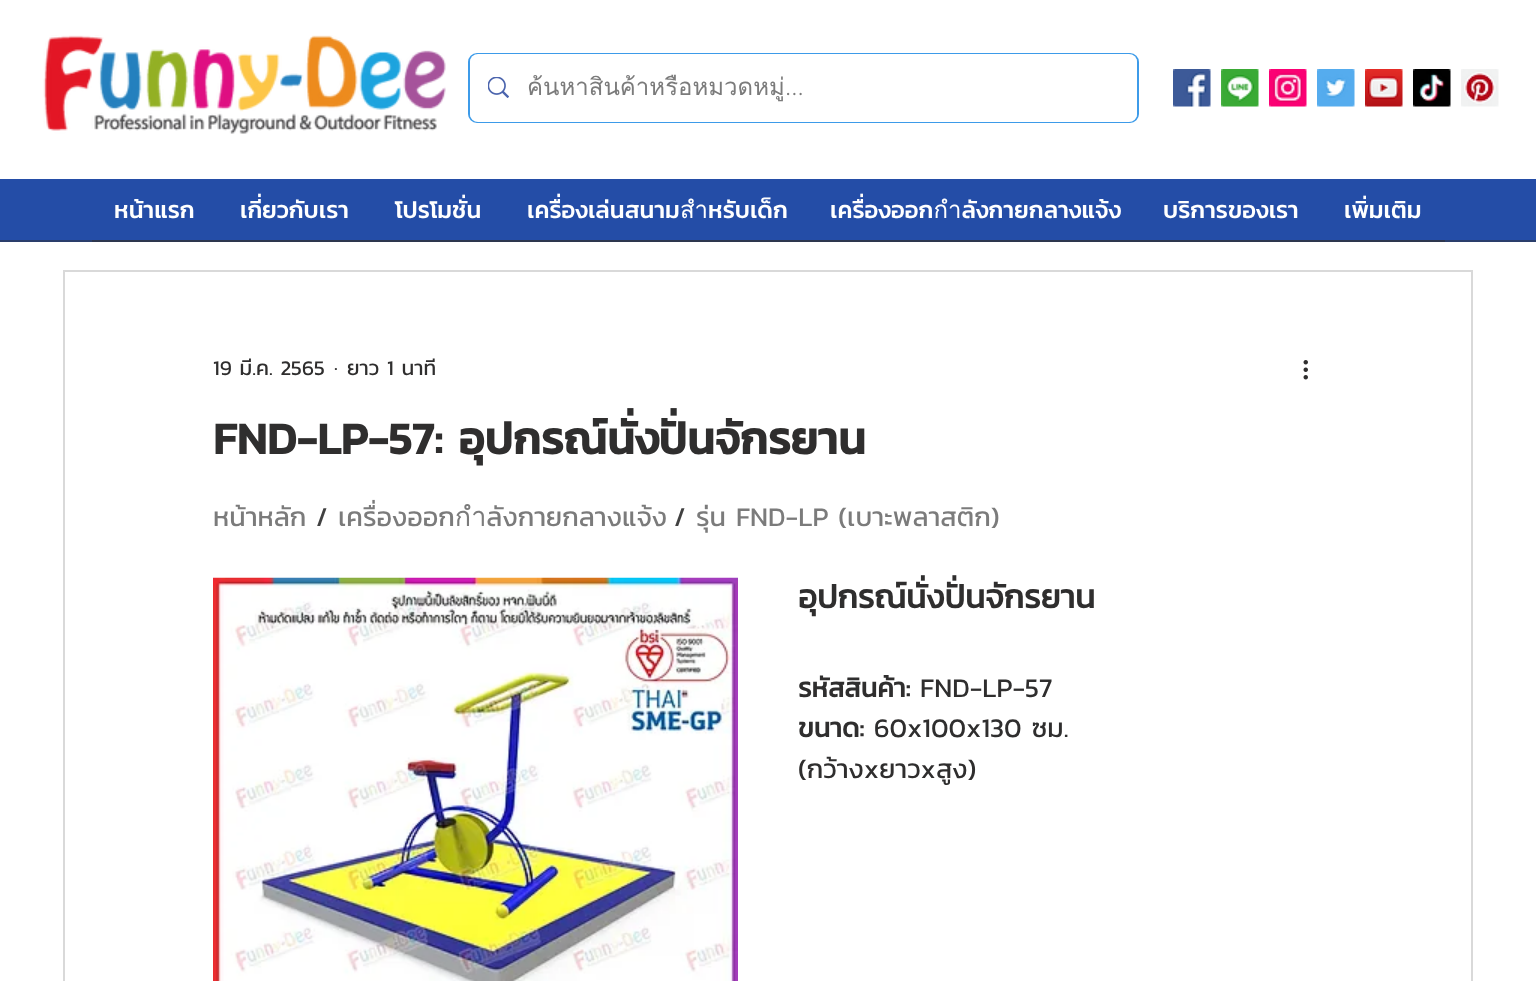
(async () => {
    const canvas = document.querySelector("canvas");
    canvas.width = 1536;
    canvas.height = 981;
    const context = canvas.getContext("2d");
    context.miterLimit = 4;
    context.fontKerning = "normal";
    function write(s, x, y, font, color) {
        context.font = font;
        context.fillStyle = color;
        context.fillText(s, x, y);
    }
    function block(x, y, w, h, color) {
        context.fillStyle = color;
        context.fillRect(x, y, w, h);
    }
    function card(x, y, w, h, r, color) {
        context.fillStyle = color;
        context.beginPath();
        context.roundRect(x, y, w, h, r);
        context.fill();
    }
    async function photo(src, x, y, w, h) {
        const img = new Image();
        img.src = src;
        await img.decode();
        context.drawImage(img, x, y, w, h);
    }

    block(0, 0, 1536, 981, "rgb(255, 255, 255)");
    await photo("media/1.png", 43, 35, 403, 99);
    context.beginPath();
    context.roundRect(469, 54, 669, 68, 8);
    context.strokeStyle = "rgb(61, 155, 233)";
    context.lineWidth = 2;
    context.stroke();
    card(470, 54, 667, 68, 8, "rgb(255, 255, 255)");
    await photo("media/2.png", 488, 77, 21, 21);
    context.save();
    context.beginPath();
    context.rect(527, 68, 547, 37);
    context.clip();
    write("ค้นหาสินค้าหรือหมวดหมู่", 527, 95, "24px Loma", "rgb(123, 123, 123)");
    context.restore();
    write("...", 785, 95, "300 24px 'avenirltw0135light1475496'", "rgb(123, 123, 123)");
    await photo("media/3.png", 1173, 69, 38, 38);
    await photo("media/4.png", 1221, 69, 38, 38);
    await photo("media/5.png", 1269, 69, 38, 38);
    await photo("media/6.png", 1317, 69, 38, 38);
    await photo("media/7.png", 1365, 69, 38, 38);
    await photo("media/8.png", 1413, 69, 38, 38);
    await photo("media/9.png", 1461, 69, 38, 38);
    block(0, 179, 1536, 61, "rgb(36, 77, 167)");
    block(0, 240, 1536, 2, "rgb(42, 62, 107)");
    write("หน้าแรก", 114, 218, "500 24px Kanit", "rgb(255, 255, 255)");
    block(92, 240, 1353, 2, "rgb(45, 54, 77)");
    write("เกี่ยวกับเรา", 240, 218, "500 24px Kanit", "rgb(255, 255, 255)");
    write("โปรโมชั่น", 395, 218, "500 24px Kanit", "rgb(255, 255, 255)");
    write("เครื่องเล่นสนามสำหรับเด็ก", 527, 218, "500 24px Kanit", "rgb(255, 255, 255)");
    write("เครื่องออกกำลังกายกลางแจ้ง", 830, 218, "500 24px Kanit", "rgb(255, 255, 255)");
    write("บริการของเรา", 1163, 218, "500 24px Kanit", "rgb(255, 255, 255)");
    write("เพิ่มเติม", 1344, 218, "500 24px Kanit", "rgb(255, 255, 255)");
    context.strokeStyle = "rgb(217, 217, 217)";
    context.strokeRect(64, 271, 1408, 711);
    write("19 มี.ค. 2565", 213, 375, "21px Kanit", "rgb(47, 46, 46)");
    write("·", 334, 375, "21px Kanit", "rgb(47, 46, 46)");
    write("ยาว 1 นาที", 347, 375, "21px Kanit", "rgb(47, 46, 46)");
    await photo("media/10.png", 1303, 360, 5, 20);
    write("FND-LP-57: อุปกรณ์นั่งปั่นจักรยาน", 213, 454, "bold 45px Kanit", "rgb(47, 46, 46)");
    write("หน้าหลัก", 213, 526, "27px Kanit", "rgb(123, 123, 123)");
    write("/", 316, 526, "27px Kanit", "rgb(65, 65, 65)");
    write("เครื่องออกกำลังกายกลางแจ้ง", 338, 526, "27px Kanit", "rgb(123, 123, 123)");
    write("/", 674, 526, "27px Kanit", "rgb(65, 65, 65)");
    write("รุ่น FND-LP (เบาะพลาสติก)", 696, 526, "27px Kanit", "rgb(123, 123, 123)");
    await photo("media/11.png", 213, 577, 525, 404);
    write("อุปกรณ์นั่งปั่นจักรยาน", 798, 608, "bold 33px 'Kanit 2'", "rgb(47, 46, 46)");
    write("รหัสสินค้า:", 798, 697, "bold 27px 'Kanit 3'", "rgb(47, 46, 46)");
    write("FND-LP-57", 920, 697, "27px Kanit", "rgb(47, 46, 46)");
    write("ขนาด:", 798, 737, "bold 27px 'Kanit 3'", "rgb(47, 46, 46)");
    write("60x100x130 ซม.", 874, 737, "27px Kanit", "rgb(47, 46, 46)");
    write("(กว้างxยาวxสูง)", 798, 778, "27px Kanit", "rgb(47, 46, 46)");
})();
